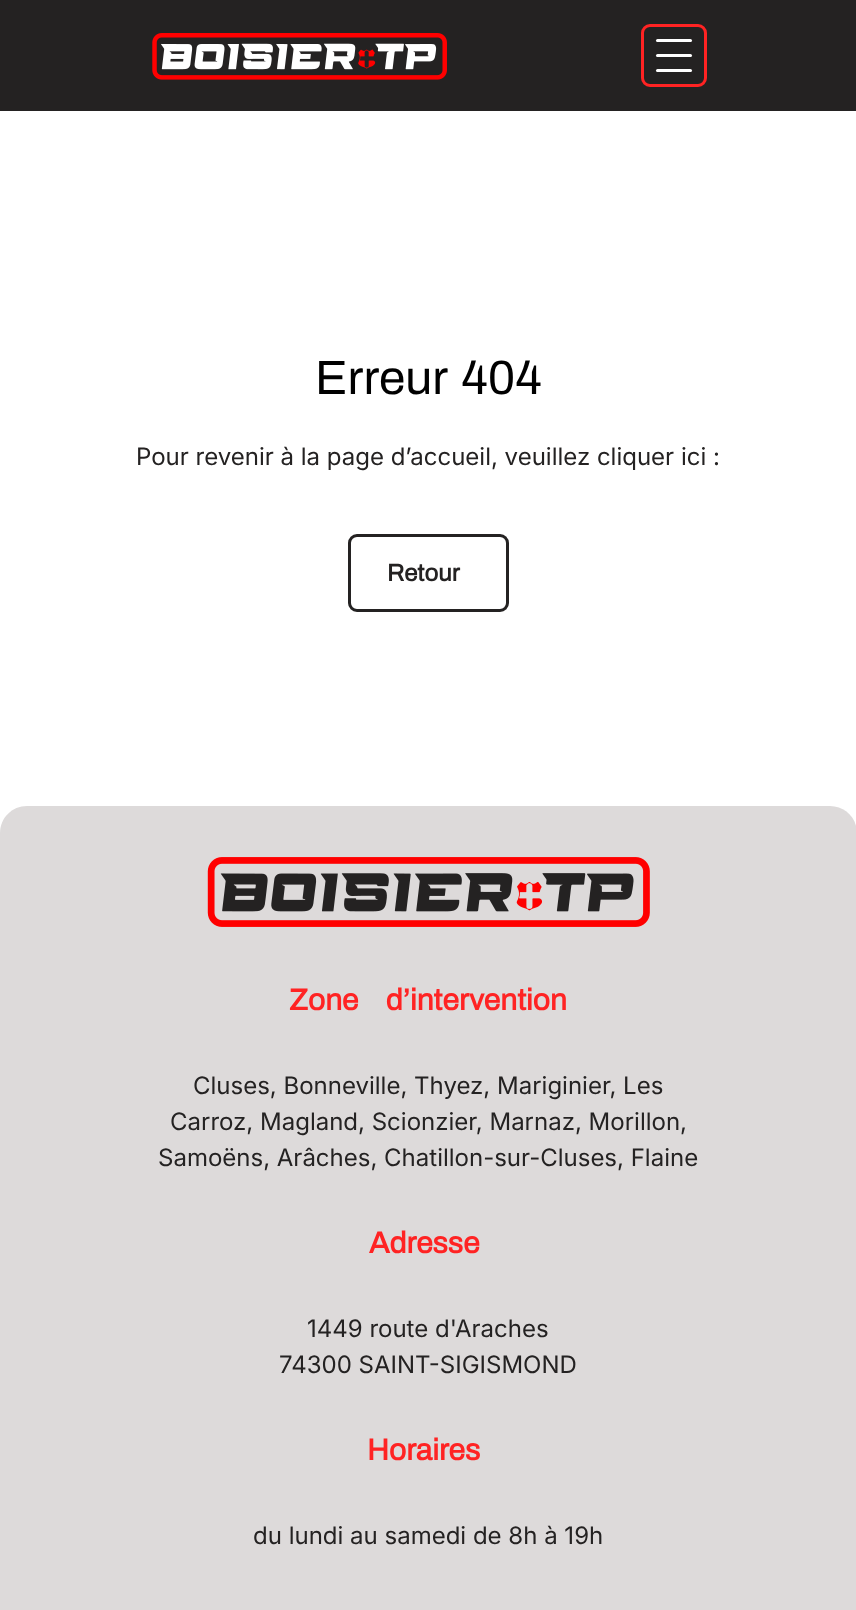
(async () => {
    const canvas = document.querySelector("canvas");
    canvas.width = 856;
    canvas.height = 1610;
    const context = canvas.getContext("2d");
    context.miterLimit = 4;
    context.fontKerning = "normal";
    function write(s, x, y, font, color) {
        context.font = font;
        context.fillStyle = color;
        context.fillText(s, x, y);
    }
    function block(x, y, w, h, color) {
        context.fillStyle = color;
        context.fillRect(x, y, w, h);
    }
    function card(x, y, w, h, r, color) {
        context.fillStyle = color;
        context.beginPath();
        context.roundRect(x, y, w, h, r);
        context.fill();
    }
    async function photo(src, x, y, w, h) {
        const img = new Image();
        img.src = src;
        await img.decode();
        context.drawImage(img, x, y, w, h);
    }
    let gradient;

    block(0, 0, 856, 1610, "rgb(255, 255, 255)");
    block(0, 0, 856, 111, "rgb(36, 34, 34)");
    await photo("media/1.png", 152, 33, 295, 47);
    context.beginPath();
    context.roundRect(642.5, 25.5, 63, 60, 7.5);
    context.strokeStyle = "rgb(255, 35, 35)";
    context.lineWidth = 3;
    context.stroke();
    card(656, 39, 36, 3, 1.5, "rgb(255, 255, 255)");
    card(656, 54, 36, 3, 1.5, "rgb(255, 255, 255)");
    card(656, 69, 36, 3, 1.5, "rgb(255, 255, 255)");
    context.wordSpacing = "4px";
    write("Erreur 404", 315, 394, "48px Archivo", "rgb(0, 0, 0)");
    context.wordSpacing = "0px";
    write("Pour revenir à la page d’accueil, veuillez cliquer ici :", 136, 465, "24px Inter", "rgb(36, 34, 34)");
    context.save();
    context.beginPath();
    context.roundRect(348, 534, 161, 78, 9);
    context.clip();
    gradient = context.createLinearGradient(509, 552, 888, 450);
    gradient.addColorStop(0, "rgb(189, 189, 189)");
    gradient.addColorStop(0.49, "rgb(189, 189, 189)");
    gradient.addColorStop(0.5, "rgb(255, 255, 255)");
    gradient.addColorStop(1, "rgb(255, 255, 255)");
    context.fillStyle = gradient;
    context.fillRect(506, 536, 3, 1);
    gradient = context.createLinearGradient(509, 696, 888, 594);
    gradient.addColorStop(0, "rgb(189, 189, 189)");
    gradient.addColorStop(0.49, "rgb(189, 189, 189)");
    gradient.addColorStop(0.5, "rgb(255, 255, 255)");
    gradient.addColorStop(1, "rgb(255, 255, 255)");
    context.fillStyle = gradient;
    context.fillRect(506, 609, 3, 1);
    context.restore();
    context.beginPath();
    context.roundRect(349.5, 535.5, 158, 75, 7.5);
    context.strokeStyle = "rgb(36, 34, 34)";
    context.stroke();
    write("Retour", 387, 581, "bold 24px Archivo", "rgb(36, 34, 34)");
    context.fillStyle = "rgb(221, 218, 218)";
    context.beginPath();
    context.moveTo(27, 806);
    context.lineTo(830, 806);
    context.bezierCurveTo(845, 806, 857, 818, 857, 833);
    context.lineTo(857, 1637);
    context.lineTo(0, 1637);
    context.lineTo(0, 833);
    context.bezierCurveTo(0, 818, 12, 806, 27, 806);
    context.closePath();
    context.fill();
    await photo("media/2.png", 207, 857, 443, 70);
    context.wordSpacing = "21px";
    write("Zone d’intervention", 289, 1010, "bold 30px Archivo", "rgb(255, 35, 35)");
    context.wordSpacing = "0px";
    write("Cluses, Bonneville, Thyez, Mariginier, Les", 193, 1094, "24px Inter", "rgb(36, 34, 34)");
    write("Carroz, Magland, Scionzier, Marnaz, Morillon,", 170, 1130, "24px Inter", "rgb(36, 34, 34)");
    write("Samoëns, Arâches, Chatillon-sur-Cluses, Flaine", 158, 1166, "24px Inter", "rgb(36, 34, 34)");
    write("Adresse", 369, 1253, "bold 30px Archivo", "rgb(255, 35, 35)");
    write("1449 route d'Araches", 307, 1337, "24px Inter", "rgb(36, 34, 34)");
    write("74300 SAINT-SIGISMOND", 279, 1373, "24px Inter", "rgb(36, 34, 34)");
    write("Horaires", 367, 1460, "bold 30px Archivo", "rgb(255, 35, 35)");
    write("du lundi au samedi de 8h à 19h", 253, 1544, "24px Inter", "rgb(36, 34, 34)");
})();
